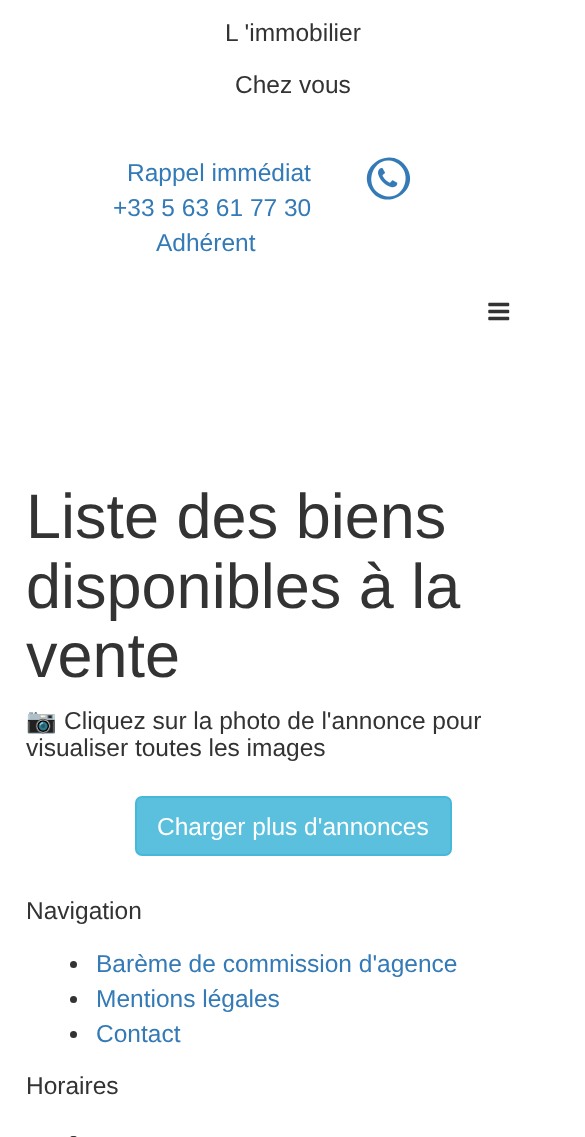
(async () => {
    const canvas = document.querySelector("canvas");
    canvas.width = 585;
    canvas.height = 1137;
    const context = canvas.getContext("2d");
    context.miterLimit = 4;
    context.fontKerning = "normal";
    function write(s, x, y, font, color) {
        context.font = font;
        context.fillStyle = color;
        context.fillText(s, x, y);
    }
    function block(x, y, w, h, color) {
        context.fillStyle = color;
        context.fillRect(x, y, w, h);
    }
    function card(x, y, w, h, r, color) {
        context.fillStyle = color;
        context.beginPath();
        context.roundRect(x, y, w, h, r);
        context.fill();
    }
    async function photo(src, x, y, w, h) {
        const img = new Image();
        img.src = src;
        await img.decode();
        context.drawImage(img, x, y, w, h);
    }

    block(0, 0, 585, 1137, "rgb(255, 255, 255)");
    write("L 'immobilier", 225, 41, "24.5px Liberation Sans", "rgb(51, 51, 51)");
    write("Chez vous", 235, 93, "24.5px Liberation Sans", "rgb(51, 51, 51)");
    write("Rappel immédiat", 127, 181, "24.5px Liberation Sans", "rgb(51, 122, 183)");
    write("+33 5 63 61 77 30", 113, 216, "24.5px Liberation Sans", "rgb(51, 122, 183)");
    context.beginPath();
    context.moveTo(395, 162);
    context.bezierCurveTo(374, 153, 361, 186, 382, 195);
    context.bezierCurveTo(403, 204, 416, 172, 395, 162);
    context.closePath();
    context.moveTo(407, 168);
    context.bezierCurveTo(421, 192, 384, 213, 370, 189);
    context.bezierCurveTo(356, 165, 393, 144, 407, 168);
    context.closePath();
    context.fill();
    await photo("media/1.png", 378, 168, 20, 20);
    write("Adhérent", 156, 251, "24.5px Liberation Sans", "rgb(51, 122, 183)");
    await photo("media/2.png", 488, 302, 22, 19);
    write("Liste des biens", 26, 538, "63px Liberation Sans", "rgb(51, 51, 51)");
    write("disponibles à la", 26, 608, "63px Liberation Sans", "rgb(51, 51, 51)");
    write("vente", 26, 677, "63px Liberation Sans", "rgb(51, 51, 51)");
    write("📷", 26, 729, "24.5px Noto Color Emoji", "rgb(51, 51, 51)");
    write("Cliquez sur la photo de l'annonce pour", 64, 729, "24.5px Liberation Sans", "rgb(51, 51, 51)");
    write("visualiser toutes les images", 26, 756, "24.5px Liberation Sans", "rgb(51, 51, 51)");
    context.fillStyle = "rgb(91, 192, 222)";
    context.beginPath();
    context.roundRect(136, 797, 315, 58, 6);
    context.fill();
    context.strokeStyle = "rgb(70, 184, 218)";
    context.lineWidth = 2;
    context.stroke();
    write("Charger plus d'annonces", 157, 835, "24.5px Liberation Sans", "rgb(255, 255, 255)");
    write("Navigation", 26, 919, "24.5px Liberation Sans", "rgb(51, 51, 51)");
    context.beginPath();
    context.arc(73.5, 964.5, 3.5, 0, Math.PI * 2);
    context.fill();
    write("Barème de commission d'agence", 96, 972, "24.5px Liberation Sans", "rgb(51, 122, 183)");
    context.fillStyle = "rgb(51, 51, 51)";
    context.beginPath();
    context.arc(73.5, 999.5, 3.5, 0, Math.PI * 2);
    context.fill();
    write("Mentions légales", 96, 1007, "24.5px Liberation Sans", "rgb(51, 122, 183)");
    context.fillStyle = "rgb(51, 51, 51)";
    context.beginPath();
    context.arc(73.5, 1034.5, 3.5, 0, Math.PI * 2);
    context.fill();
    write("Contact", 96, 1042, "24.5px Liberation Sans", "rgb(51, 122, 183)");
    write("Horaires", 26, 1094, "24.5px Liberation Sans", "rgb(51, 51, 51)");
    card(70, 1136, 7, 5, 3.5, "rgb(51, 51, 51)");
})();
